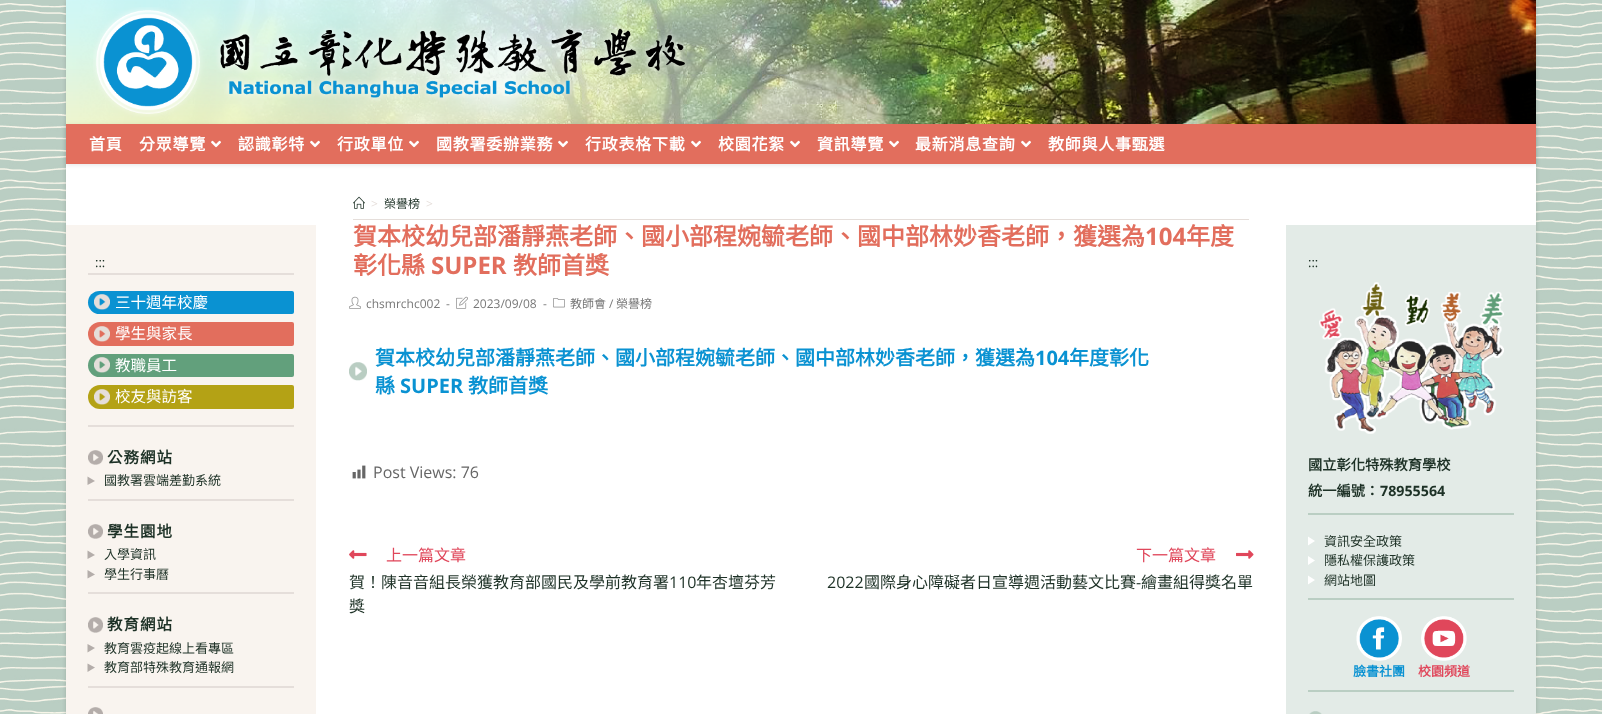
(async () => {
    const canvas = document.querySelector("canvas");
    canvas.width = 1602;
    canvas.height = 714;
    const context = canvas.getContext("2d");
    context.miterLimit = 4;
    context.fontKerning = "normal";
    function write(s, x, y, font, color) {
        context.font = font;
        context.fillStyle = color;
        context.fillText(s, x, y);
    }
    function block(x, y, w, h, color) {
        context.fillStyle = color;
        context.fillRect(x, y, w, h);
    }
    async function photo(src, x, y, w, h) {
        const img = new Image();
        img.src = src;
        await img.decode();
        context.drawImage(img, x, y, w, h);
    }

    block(0, 0, 1602, 714, "rgb(186, 206, 195)");
    await photo("media/1.png", 0, 2, 1602, 712);
    context.fillStyle = "rgba(0, 0, 0, 0.15)";
    context.filter = "blur(2px)";
    context.beginPath();
    context.rect(66, 1, 1470, 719);
    context.fill();
    context.filter = "none";
    block(66, 164, 1470, 550, "rgb(255, 255, 255)");
    await photo("media/2.png", 66, 0, 1470, 124);
    await photo("media/3.png", 93, 7, 596, 110);
    context.fillStyle = "rgba(0, 0, 0, 0.1)";
    context.filter = "blur(2.5px)";
    context.beginPath();
    context.rect(66, 125, 1470, 40);
    context.fill();
    context.filter = "none";
    block(66, 124, 1470, 40, "rgb(226, 110, 93)");
    context.letterSpacing = "0.75px";
    write("首頁", 89, 150, "bold 16px Noto Sans CJK TC", "rgb(255, 255, 255)");
    write("分眾導覽", 139, 150, "bold 16px Noto Sans CJK TC", "rgb(255, 255, 255)");
    await photo("media/4.png", 211, 140, 10, 8);
    write("認識彰特", 238, 150, "bold 16px Noto Sans CJK TC", "rgb(255, 255, 255)");
    await photo("media/4.png", 310, 140, 10, 8);
    write("行政單位", 337, 150, "bold 16px Noto Sans CJK TC", "rgb(255, 255, 255)");
    await photo("media/4.png", 409, 140, 10, 8);
    write("國教署委辦業務", 436, 150, "bold 16px Noto Sans CJK TC", "rgb(255, 255, 255)");
    await photo("media/4.png", 558, 140, 10, 8);
    write("行政表格下載", 585, 150, "bold 16px Noto Sans CJK TC", "rgb(255, 255, 255)");
    await photo("media/4.png", 691, 140, 10, 8);
    write("校園花絮", 718, 150, "bold 16px Noto Sans CJK TC", "rgb(255, 255, 255)");
    await photo("media/4.png", 790, 140, 10, 8);
    write("資訊導覽", 817, 150, "bold 16px Noto Sans CJK TC", "rgb(255, 255, 255)");
    await photo("media/4.png", 889, 140, 10, 8);
    write("最新消息查詢", 915, 150, "bold 16px Noto Sans CJK TC", "rgb(255, 255, 255)");
    await photo("media/4.png", 1021, 140, 10, 8);
    write("教師與人事甄選", 1048, 150, "bold 16px Noto Sans CJK TC", "rgb(255, 255, 255)");
    block(353, 219, 896, 1, "rgb(229, 222, 218)");
    await photo("media/5.png", 353, 196, 12, 13);
    context.letterSpacing = "0px";
    write(">", 371, 208, "12px Open Sans", "rgb(229, 222, 218)");
    write("榮譽榜", 384, 208, "12px Noto Sans CJK TC", "rgb(29, 49, 38)");
    write(">", 426, 208, "12px Open Sans", "rgb(229, 222, 218)");
    write("賀本校幼兒部潘靜燕老師、國小部程婉毓老師、國中部林妙香老師，獲選為", 353, 245, "bold 24px Noto Sans CJK TC", "rgb(226, 110, 93)");
    write("104", 1145, 245, "bold 24px Open Sans", "rgb(226, 110, 93)");
    write("年度", 1186, 245, "bold 24px Noto Sans CJK TC", "rgb(226, 110, 93)");
    write("彰化縣", 353, 274, "bold 24px Noto Sans CJK TC", "rgb(226, 110, 93)");
    write("SUPER", 431, 274, "bold 24px Open Sans", "rgb(226, 110, 93)");
    write("教師首獎", 513, 274, "bold 24px Noto Sans CJK TC", "rgb(226, 110, 93)");
    block(66, 225, 250, 489, "rgb(249, 244, 239)");
    block(88, 273, 206, 2, "rgb(229, 222, 218)");
    write(":::", 95, 267, "13px Open Sans", "rgb(29, 49, 38)");
    block(88, 425, 206, 2, "rgb(229, 222, 218)");
    context.fillStyle = "rgb(10, 146, 210)";
    context.beginPath();
    context.roundRect(88, 291, 206, 23, [11.5, 2, 2, 11.5]);
    context.fill();
    await photo("media/6.png", 94, 294, 16, 16);
    write("三十週年校慶", 115, 308, "15.5px Noto Sans CJK TC", "rgb(255, 255, 255)");
    context.fillStyle = "rgb(226, 110, 93)";
    context.beginPath();
    context.roundRect(88, 322, 206, 24, [12, 2, 2, 12]);
    context.fill();
    await photo("media/7.png", 94, 326, 16, 16);
    write("學生與家長", 115, 339, "15.5px Noto Sans CJK TC", "rgb(255, 255, 255)");
    context.fillStyle = "rgb(98, 160, 124)";
    context.beginPath();
    context.roundRect(88, 354, 206, 23, [11.5, 2, 2, 11.5]);
    context.fill();
    await photo("media/8.png", 94, 357, 16, 16);
    write("教職員工", 115, 371, "15.5px Noto Sans CJK TC", "rgb(255, 255, 255)");
    context.fillStyle = "rgb(180, 162, 21)";
    context.beginPath();
    context.roundRect(88, 385, 206, 24, [12, 2, 2, 12]);
    context.fill();
    await photo("media/9.png", 94, 389, 16, 16);
    write("校友與訪客", 115, 402, "15.5px Noto Sans CJK TC", "rgb(255, 255, 255)");
    block(88, 499, 206, 2, "rgb(229, 222, 218)");
    await photo("media/10.png", 88, 450, 15, 15);
    context.letterSpacing = "1px";
    write("公務網站", 107, 463, "bold 15.5px Noto Sans CJK TC", "rgb(29, 49, 38)");
    context.fillStyle = "rgb(180, 173, 170)";
    context.beginPath();
    context.moveTo(87.5, 476.5);
    context.lineTo(95, 481);
    context.lineTo(87.5, 485);
    context.closePath();
    context.fill();
    context.letterSpacing = "0px";
    write("國教署雲端差勤系統", 104, 485, "13px Noto Sans CJK TC", "rgb(29, 49, 38)");
    block(88, 592, 206, 2, "rgb(229, 222, 218)");
    await photo("media/11.png", 88, 524, 15, 15);
    context.letterSpacing = "1px";
    write("學生園地", 107, 537, "bold 15.5px Noto Sans CJK TC", "rgb(29, 49, 38)");
    context.fillStyle = "rgb(180, 173, 170)";
    context.beginPath();
    context.moveTo(87.5, 550.5);
    context.lineTo(95, 555);
    context.lineTo(87.5, 559);
    context.closePath();
    context.fill();
    context.letterSpacing = "0px";
    write("入學資訊", 104, 559, "13px Noto Sans CJK TC", "rgb(29, 49, 38)");
    context.fillStyle = "rgb(180, 173, 170)";
    context.beginPath();
    context.moveTo(87.5, 570);
    context.lineTo(95, 574.5);
    context.lineTo(87.5, 578.5);
    context.closePath();
    context.fill();
    write("學生行事曆", 104, 579, "13px Noto Sans CJK TC", "rgb(29, 49, 38)");
    block(88, 686, 206, 2, "rgb(229, 222, 218)");
    await photo("media/12.png", 88, 617, 15, 16);
    context.letterSpacing = "1px";
    write("教育網站", 107, 630, "bold 15.5px Noto Sans CJK TC", "rgb(29, 49, 38)");
    context.fillStyle = "rgb(180, 173, 170)";
    context.beginPath();
    context.moveTo(87.5, 644);
    context.lineTo(95, 648);
    context.lineTo(87.5, 652.5);
    context.closePath();
    context.fill();
    context.letterSpacing = "0px";
    write("教育雲疫起線上看專區", 104, 653, "13px Noto Sans CJK TC", "rgb(29, 49, 38)");
    context.fillStyle = "rgb(180, 173, 170)";
    context.beginPath();
    context.moveTo(87.5, 663.5);
    context.lineTo(95, 667.5);
    context.lineTo(87.5, 672);
    context.closePath();
    context.fill();
    write("教育部特殊教育通報網", 104, 672, "13px Noto Sans CJK TC", "rgb(29, 49, 38)");
    await photo("media/13.png", 88, 707, 15, 7);
    await photo("media/14.png", 349, 296, 12, 13);
    write("chsmrchc002", 366, 308, "12px Open Sans", "rgb(119, 119, 119)");
    write("-", 446, 308, "12px Open Sans", "rgb(119, 119, 119)");
    await photo("media/15.png", 456, 296, 12, 13);
    write("2023/09/08", 473, 308, "12px Open Sans", "rgb(119, 119, 119)");
    write("-", 543, 308, "12px Open Sans", "rgb(119, 119, 119)");
    await photo("media/16.png", 553, 298, 12, 10);
    write("教師會", 570, 308, "12px Noto Sans CJK TC", "rgb(119, 119, 119)");
    write("/", 609, 308, "12px Open Sans", "rgb(119, 119, 119)");
    write("榮譽榜", 616, 308, "12px Noto Sans CJK TC", "rgb(119, 119, 119)");
    await photo("media/17.png", 349, 362, 18, 19);
    write("賀本校幼兒部潘靜燕老師、國小部程婉毓老師、國中部林妙香老師，獲選為", 375, 365, "bold 20px Noto Sans CJK TC", "rgb(10, 146, 210)");
    write("104", 1035, 365, "bold 20px Open Sans", "rgb(10, 146, 210)");
    write("年度彰化", 1069, 365, "bold 20px Noto Sans CJK TC", "rgb(10, 146, 210)");
    write("縣", 375, 393, "bold 20px Noto Sans CJK TC", "rgb(10, 146, 210)");
    write("SUPER", 400, 393, "bold 20px Open Sans", "rgb(10, 146, 210)");
    write("教師首獎", 468, 393, "bold 20px Noto Sans CJK TC", "rgb(10, 146, 210)");
    await photo("media/18.png", 352, 465, 14, 14);
    write("Post Views: 76", 373, 478, "16px Open Sans", "rgb(102, 102, 102)");
    await photo("media/19.png", 349, 550, 18, 9);
    write("上一篇文章", 386, 561, "16px Noto Sans CJK TC", "rgb(224, 71, 91)");
    write("賀！陳音音組長榮獲教育部國民及學前教育署", 349, 588, "16px Noto Sans CJK TC", "rgb(29, 49, 38)");
    write("110", 669, 588, "16px Open Sans", "rgb(29, 49, 38)");
    write("年杏壇芬芳", 696, 588, "16px Noto Sans CJK TC", "rgb(29, 49, 38)");
    write("獎", 349, 612, "16px Noto Sans CJK TC", "rgb(29, 49, 38)");
    write("下一篇文章", 1136, 561, "16px Noto Sans CJK TC", "rgb(224, 71, 91)");
    await photo("media/20.png", 1236, 550, 18, 9);
    write("2022", 827, 588, "16px Open Sans", "rgb(29, 49, 38)");
    write("國際身心障礙者日宣導週活動藝文比賽", 864, 588, "16px Noto Sans CJK TC", "rgb(29, 49, 38)");
    write("-", 1136, 588, "16px Open Sans", "rgb(29, 49, 38)");
    write("繪畫組得獎名單", 1141, 588, "16px Noto Sans CJK TC", "rgb(29, 49, 38)");
    block(1286, 225, 250, 489, "rgb(227, 235, 231)");
    write(":::", 1308, 267, "13px Open Sans", "rgb(29, 49, 38)");
    await photo("media/21.png", 1319, 282, 185, 152);
    block(1308, 513, 206, 2, "rgb(186, 206, 195)");
    write("國立彰化特殊教育學校", 1308, 470, "bold 14.25px Noto Sans CJK TC", "rgb(29, 49, 38)");
    write("統一編號：", 1308, 496, "bold 14.25px Noto Sans CJK TC", "rgb(29, 49, 38)");
    write("78955564", 1380, 496, "bold 14.25px Open Sans", "rgb(29, 49, 38)");
    block(1308, 598, 206, 2, "rgb(186, 206, 195)");
    context.fillStyle = "rgb(255, 255, 255)";
    context.beginPath();
    context.moveTo(1308, 536.5);
    context.lineTo(1315, 541);
    context.lineTo(1308, 545.5);
    context.closePath();
    context.fill();
    write("資訊安全政策", 1324, 546, "13px Noto Sans CJK TC", "rgb(29, 49, 38)");
    context.fillStyle = "rgb(255, 255, 255)";
    context.beginPath();
    context.moveTo(1308, 556);
    context.lineTo(1315, 560.5);
    context.lineTo(1308, 565);
    context.closePath();
    context.fill();
    write("隱私權保護政策", 1324, 565, "13px Noto Sans CJK TC", "rgb(29, 49, 38)");
    context.fillStyle = "rgb(255, 255, 255)";
    context.beginPath();
    context.moveTo(1308, 575.5);
    context.lineTo(1315, 580);
    context.lineTo(1308, 584.5);
    context.closePath();
    context.fill();
    write("網站地圖", 1324, 585, "13px Noto Sans CJK TC", "rgb(29, 49, 38)");
    block(1308, 690, 206, 2, "rgb(186, 206, 195)");
    await photo("media/22.png", 1356, 616, 46, 45);
    write("臉書社團", 1353, 676, "bold 13px Noto Sans CJK TC", "rgb(10, 146, 210)");
    await photo("media/23.png", 1421, 616, 46, 45);
    write("校園頻道", 1418, 676, "bold 13px Noto Sans CJK TC", "rgb(224, 71, 91)");
    await photo("media/24.png", 1309, 711, 13, 3);
})();
